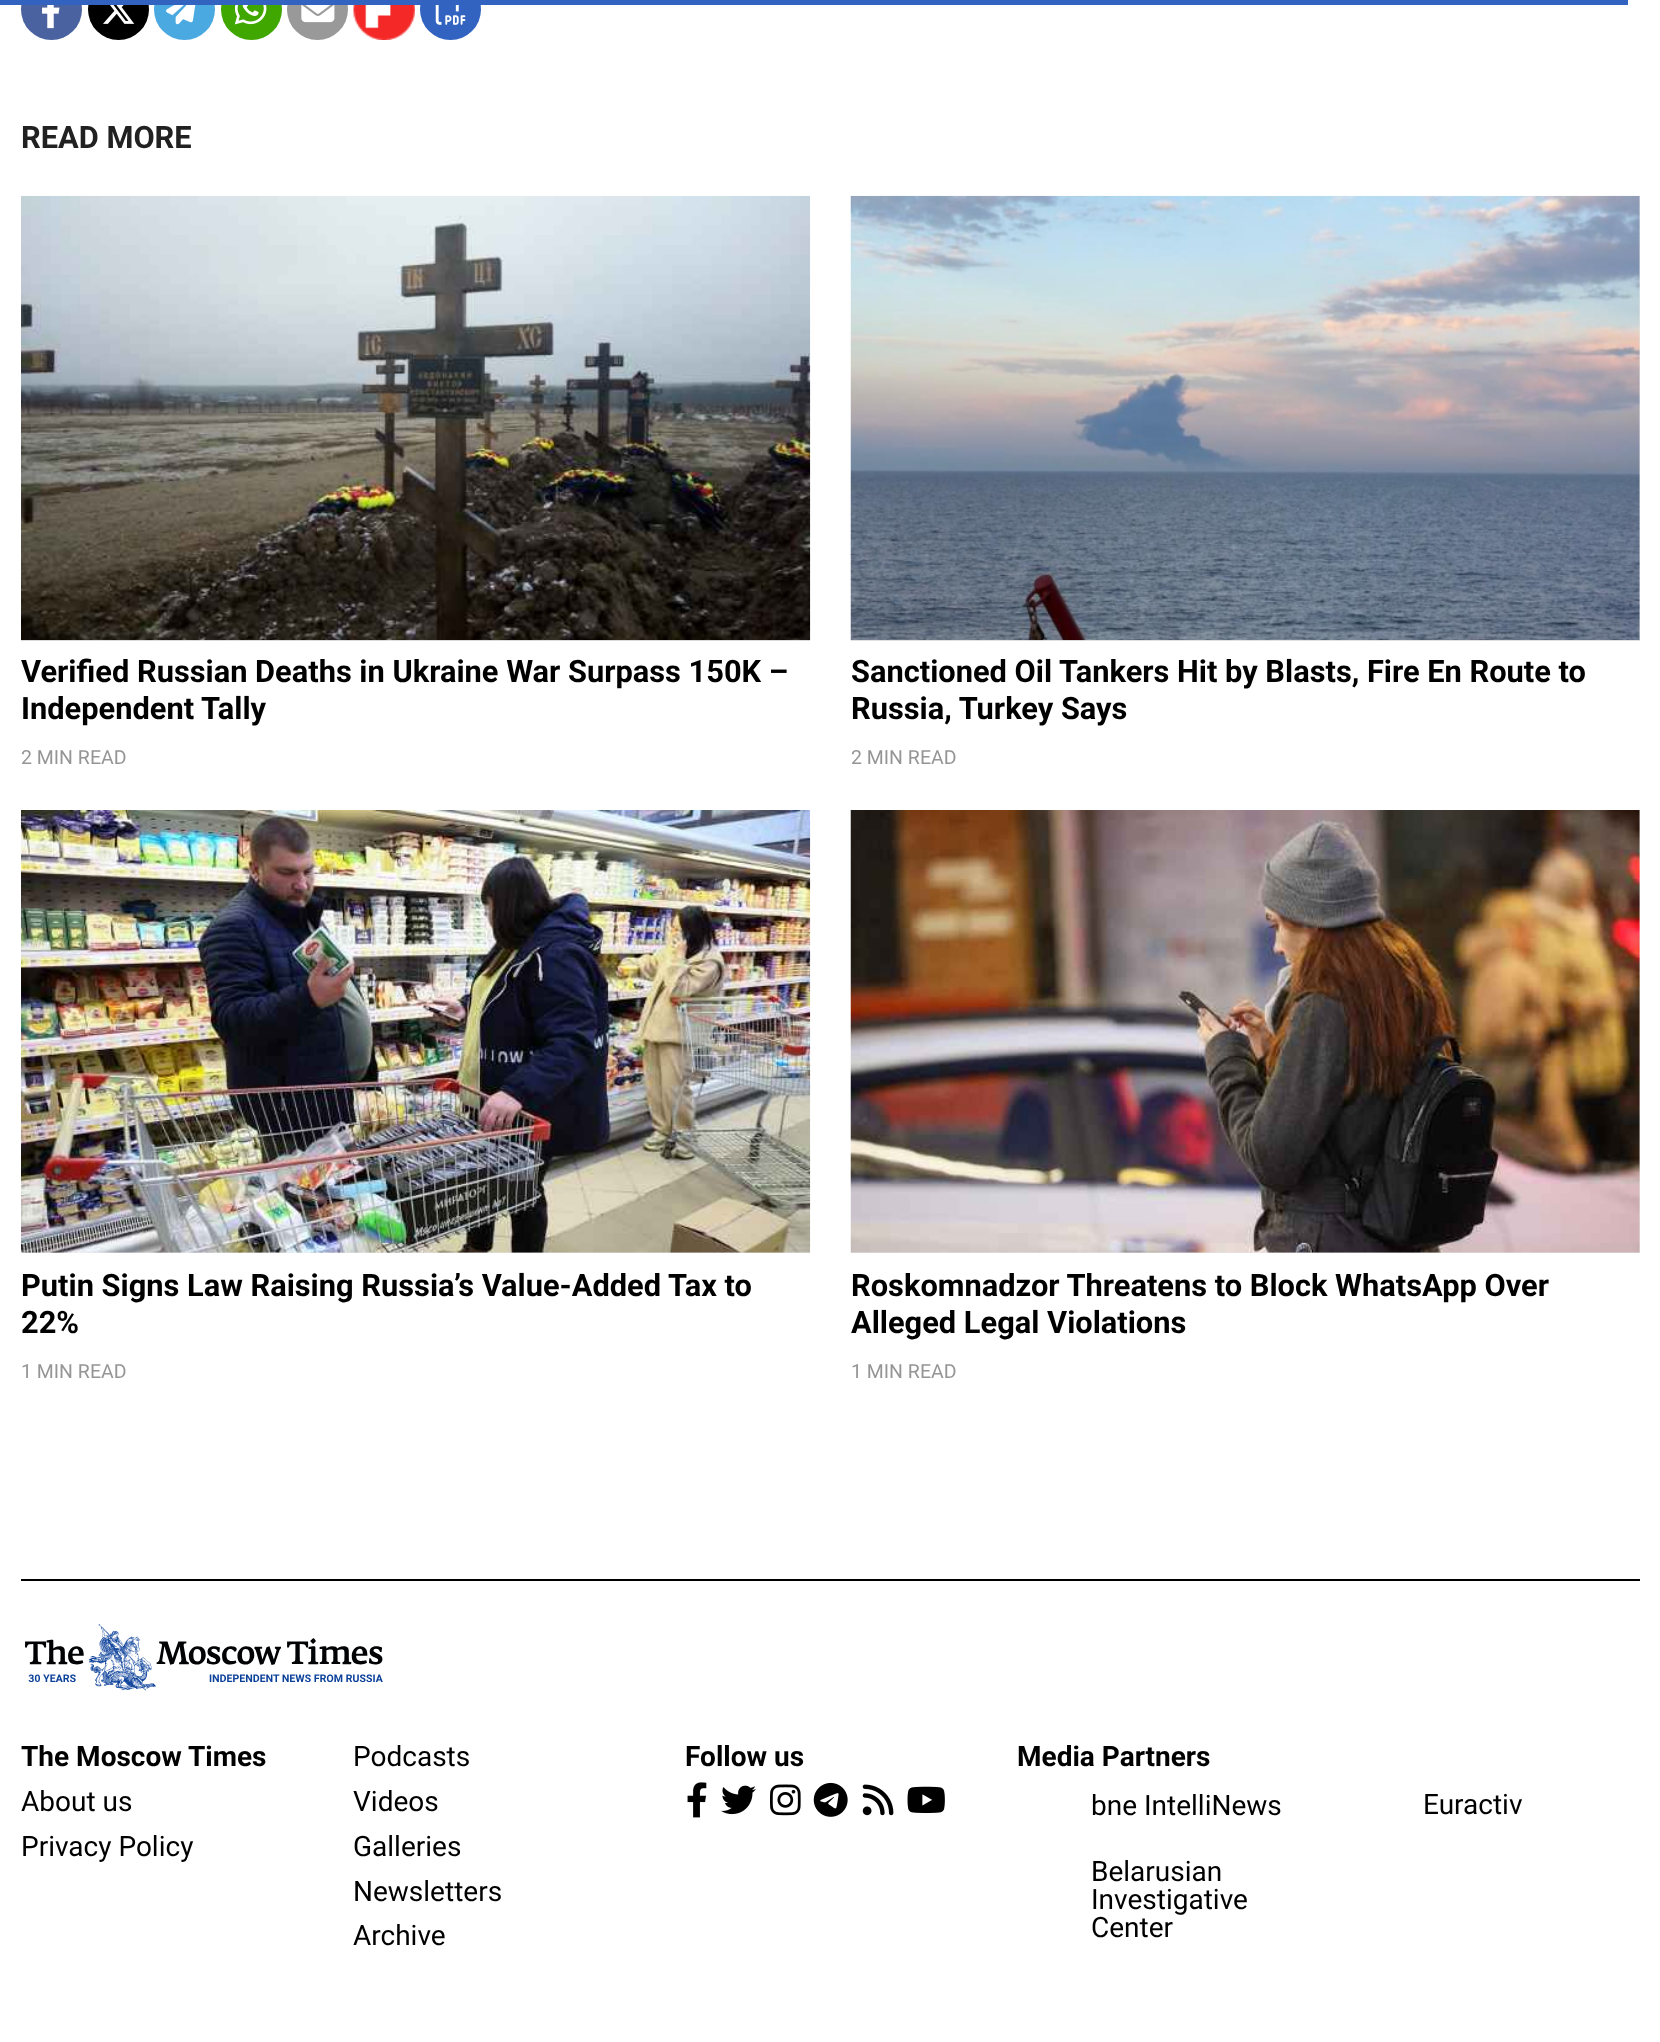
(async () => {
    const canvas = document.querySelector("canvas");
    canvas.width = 1660;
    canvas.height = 2042;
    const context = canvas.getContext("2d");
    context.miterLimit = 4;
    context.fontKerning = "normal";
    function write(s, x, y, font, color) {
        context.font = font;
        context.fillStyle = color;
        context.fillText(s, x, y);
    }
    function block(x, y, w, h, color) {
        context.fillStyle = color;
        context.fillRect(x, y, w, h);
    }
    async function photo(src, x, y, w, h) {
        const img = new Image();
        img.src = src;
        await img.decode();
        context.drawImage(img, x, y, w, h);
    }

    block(0, 0, 1660, 2042, "rgb(255, 255, 255)");
    context.fillStyle = "rgb(74, 98, 160)";
    context.beginPath();
    context.arc(51.5, 9.5, 30.5, 0, Math.PI * 2);
    context.fill();
    context.fillStyle = "rgb(0, 0, 0)";
    context.beginPath();
    context.arc(118.5, 9.5, 30.5, 0, Math.PI * 2);
    context.fill();
    context.fillStyle = "rgb(75, 169, 226)";
    context.beginPath();
    context.arc(184.5, 9.5, 30.5, 0, Math.PI * 2);
    context.fill();
    context.fillStyle = "rgb(64, 166, 0)";
    context.beginPath();
    context.arc(251.5, 9.5, 30.5, 0, Math.PI * 2);
    context.fill();
    context.fillStyle = "rgb(153, 153, 153)";
    context.beginPath();
    context.arc(317.5, 9.5, 30.5, 0, Math.PI * 2);
    context.fill();
    context.fillStyle = "rgb(232, 232, 232)";
    context.beginPath();
    context.arc(384.5, 9.5, 30.5, 0, Math.PI * 2);
    context.fill();
    context.fillStyle = "rgb(50, 99, 192)";
    context.beginPath();
    context.arc(450.5, 9.5, 30.5, 0, Math.PI * 2);
    context.fill();
    block(0, 0, 1628, 5, "rgb(50, 99, 192)");
    await photo("media/1.png", 42, 5, 18, 24);
    await photo("media/2.png", 103, 5, 32, 19);
    await photo("media/3.png", 166, 5, 30, 20);
    await photo("media/4.png", 234, 5, 33, 20);
    await photo("media/5.png", 301, 5, 34, 18);
    await photo("media/6.png", 353, 5, 62, 35);
    await photo("media/7.png", 435, 5, 31, 20);
    write("READ MORE", 21, 148, "bold 30.8px Roboto", "rgb(33, 33, 33)");
    block(21, 640, 789, 1, "rgb(232, 232, 232)");
    await photo("media/8.png", 21, 195, 790, 446);
    write("Verified Russian Deaths in Ukraine War Surpass 150K –", 21, 682, "bold 30.8px Roboto", "rgb(0, 0, 0)");
    write("Independent Tally", 21, 719, "bold 30.8px Roboto", "rgb(0, 0, 0)");
    write("2 MIN READ", 21, 764, "19.5px Roboto", "rgb(149, 149, 149)");
    block(851, 196, 789, 445, "rgb(232, 232, 232)");
    await photo("media/9.png", 850, 195, 790, 446);
    write("Sanctioned Oil Tankers Hit by Blasts, Fire En Route to", 851, 682, "bold 30.8px Roboto", "rgb(0, 0, 0)");
    write("Russia, Turkey Says", 851, 719, "bold 30.8px Roboto", "rgb(0, 0, 0)");
    write("2 MIN READ", 851, 764, "19.5px Roboto", "rgb(149, 149, 149)");
    block(21, 1252, 789, 1, "rgb(232, 232, 232)");
    await photo("media/10.png", 21, 810, 790, 443);
    write("Putin Signs Law Raising Russia’s Value-Added Tax to", 21, 1296, "bold 30.8px Roboto", "rgb(0, 0, 0)");
    write("22%", 21, 1333, "bold 30.8px Roboto", "rgb(0, 0, 0)");
    write("1 MIN READ", 21, 1378, "19.5px Roboto", "rgb(149, 149, 149)");
    block(851, 810, 789, 443, "rgb(232, 232, 232)");
    await photo("media/11.png", 850, 810, 790, 443);
    write("Roskomnadzor Threatens to Block WhatsApp Over", 851, 1296, "bold 30.8px Roboto", "rgb(0, 0, 0)");
    write("Alleged Legal Violations", 851, 1333, "bold 30.8px Roboto", "rgb(0, 0, 0)");
    write("1 MIN READ", 851, 1378, "19.5px Roboto", "rgb(149, 149, 149)");
    block(21, 1579, 1619, 2, "rgb(0, 0, 0)");
    await photo("media/12.png", 25, 1624, 358, 67);
    write("The Moscow Times", 21, 1766, "bold 28px Roboto", "rgb(0, 0, 0)");
    write("About us", 21, 1811, "28px Roboto", "rgb(0, 0, 0)");
    write("Privacy Policy", 21, 1856, "28px Roboto", "rgb(0, 0, 0)");
    write("Podcasts", 353, 1766, "28px Roboto", "rgb(0, 0, 0)");
    write("Videos", 353, 1811, "28px Roboto", "rgb(0, 0, 0)");
    write("Galleries", 353, 1856, "28px Roboto", "rgb(0, 0, 0)");
    write("Newsletters", 353, 1901, "28px Roboto", "rgb(0, 0, 0)");
    write("Archive", 353, 1945, "28px Roboto", "rgb(0, 0, 0)");
    write("Follow us", 685, 1766, "bold 28px Roboto", "rgb(0, 0, 0)");
    await photo("media/13.png", 687, 1782, 20, 36);
    await photo("media/14.png", 721, 1785, 35, 30);
    await photo("media/15.png", 770, 1784, 31, 32);
    await photo("media/16.png", 813, 1782, 35, 35);
    await photo("media/17.png", 862, 1784, 32, 32);
    await photo("media/18.png", 907, 1786, 38, 27);
    write("Media Partners", 1017, 1766, "bold 28px Roboto", "rgb(0, 0, 0)");
    write("bne IntelliNews", 1091, 1815, "28px Roboto", "rgb(0, 0, 0)");
    write("Belarusian", 1091, 1881, "28px Roboto", "rgb(0, 0, 0)");
    write("Investigative", 1091, 1909, "28px Roboto", "rgb(0, 0, 0)");
    write("Center", 1091, 1937, "28px Roboto", "rgb(0, 0, 0)");
    write("Euractiv", 1423, 1814, "28px Roboto", "rgb(0, 0, 0)");
})();
